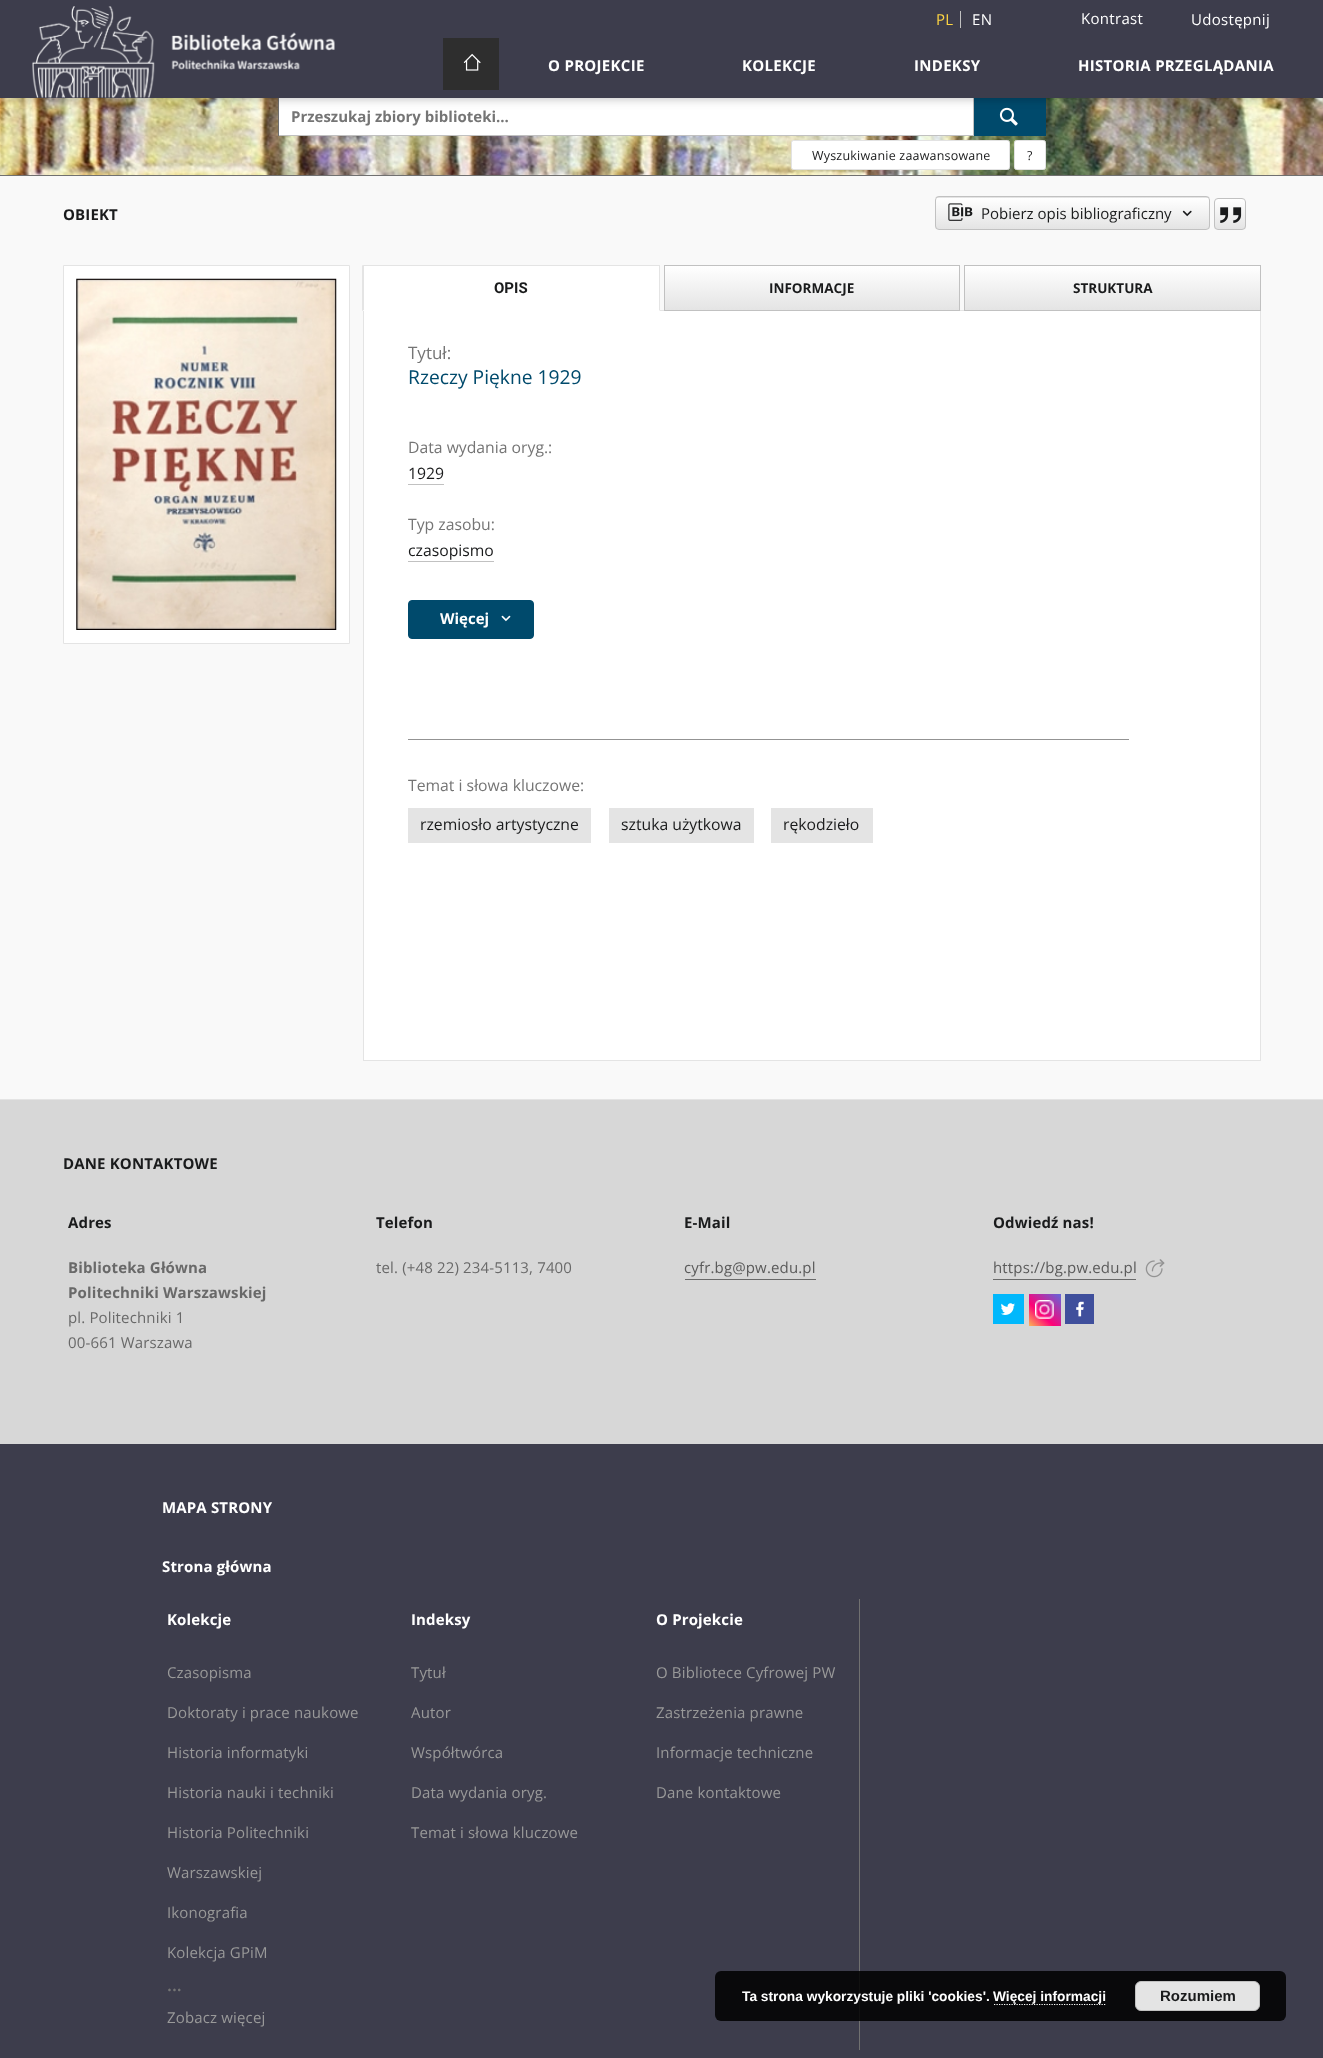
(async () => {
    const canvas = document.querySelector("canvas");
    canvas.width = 1323;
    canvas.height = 2058;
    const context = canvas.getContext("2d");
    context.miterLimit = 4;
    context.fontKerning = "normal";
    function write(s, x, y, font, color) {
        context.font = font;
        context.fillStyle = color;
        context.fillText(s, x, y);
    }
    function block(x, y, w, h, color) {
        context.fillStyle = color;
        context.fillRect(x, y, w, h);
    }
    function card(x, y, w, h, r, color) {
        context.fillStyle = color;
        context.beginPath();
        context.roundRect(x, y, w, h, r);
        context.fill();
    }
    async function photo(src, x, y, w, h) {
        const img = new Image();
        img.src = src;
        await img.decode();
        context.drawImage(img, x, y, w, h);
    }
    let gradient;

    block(0, 0, 1323, 2058, "rgb(249, 249, 249)");
    await photo("media/3.png", 0, 98, 1323, 77);
    block(279, 98, 694, 37, "rgb(255, 255, 255)");
    block(973, 96, 1, 40, "rgb(193, 193, 193)");
    block(278, 135, 696, 1, "rgb(193, 193, 193)");
    block(278, 96, 1, 40, "rgb(112, 112, 112)");
    block(974, 98, 72, 38, "rgb(0, 74, 108)");
    await photo("media/4.png", 999, 107, 19, 19);
    context.fillStyle = "rgba(0, 0, 0, 0.08)";
    context.filter = "blur(6px)";
    context.beginPath();
    context.rect(0, 1, 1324, 98);
    context.fill();
    context.filter = "none";
    context.fillStyle = "rgba(0, 0, 0, 0.06)";
    context.filter = "blur(3px)";
    context.beginPath();
    context.rect(0, 5, 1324, 98);
    context.fill();
    context.filter = "none";
    context.filter = "blur(2.5px)";
    context.beginPath();
    context.rect(1, 4, 1322, 95);
    context.fill();
    context.filter = "none";
    block(0, 0, 1323, 98, "rgb(61, 61, 76)");
    block(960, 11, 1, 17, "rgb(193, 193, 193)");
    context.letterSpacing = "0.3px";
    write("PL", 936, 25, "15px Open Sans", "rgb(254, 213, 66)");
    write("EN", 972, 25, "15px Open Sans", "rgb(255, 255, 255)");
    write("Kontrast", 1081, 24, "15px Open Sans", "rgb(255, 255, 255)");
    write("Udostępnij", 1191, 25, "15px Open Sans", "rgb(255, 255, 255)");
    await photo("media/1.png", 32, 6, 303, 92);
    block(443, 38, 56, 52, "rgb(46, 46, 46)");
    await photo("media/2.png", 463, 53, 18, 18);
    write("O PROJEKCIE", 548, 71, "bold 15px Open Sans", "rgb(255, 255, 255)");
    write("KOLEKCJE", 742, 71, "bold 15px Open Sans", "rgb(255, 255, 255)");
    write("INDEKSY", 914, 71, "bold 15px Open Sans", "rgb(255, 255, 255)");
    write("HISTORIA PRZEGLĄDANIA", 1078, 71, "bold 15px Open Sans", "rgb(255, 255, 255)");
    block(0, 175, 1323, 1, "rgb(112, 112, 112)");
    context.letterSpacing = "0px";
    write("Przeszukaj zbiory biblioteki...", 291, 122, "bold 15px Open Sans", "rgb(117, 117, 117)");
    context.fillStyle = "rgb(255, 255, 255)";
    context.beginPath();
    context.roundRect(791.5, 140.5, 218, 29, 2);
    context.fill();
    context.strokeStyle = "rgb(226, 226, 226)";
    context.stroke();
    context.letterSpacing = "0.2px";
    write("Wyszukiwanie zaawansowane", 812, 160, "12.5px Open Sans", "rgb(26, 27, 28)");
    context.fillStyle = "rgb(255, 255, 255)";
    context.beginPath();
    context.roundRect(1014.5, 140.5, 31, 29, 2);
    context.fill();
    context.stroke();
    context.letterSpacing = "0px";
    write("?", 1027, 160, "12.5px Open Sans", "rgb(26, 27, 28)");
    context.letterSpacing = "0.15px";
    write("OBIEKT", 63, 220, "bold 15px Open Sans", "rgb(26, 27, 28)");
    context.save();
    context.beginPath();
    context.roundRect(935, 196, 275, 34, 4);
    context.clip();
    gradient = context.createLinearGradient(1073, 166, 1073, 198);
    gradient.addColorStop(0, "rgb(255, 255, 255)");
    gradient.addColorStop(1, "rgb(228, 228, 228)");
    context.fillStyle = gradient;
    context.fillRect(935, 196, 275, 2);
    gradient = context.createLinearGradient(1073, 198, 1073, 229);
    gradient.addColorStop(0, "rgb(255, 255, 255)");
    gradient.addColorStop(1, "rgb(228, 228, 228)");
    context.fillStyle = gradient;
    context.fillRect(935, 198, 275, 31);
    context.restore();
    context.beginPath();
    context.roundRect(935.5, 196.5, 274, 33, 3.5);
    context.strokeStyle = "rgb(193, 193, 193)";
    context.stroke();
    await photo("media/5.png", 948, 203, 25, 18);
    context.letterSpacing = "0px";
    write("Pobierz opis bibliograficzny", 981, 219, "15px Open Sans", "rgb(26, 27, 28)");
    await photo("media/6.png", 1182, 210, 10, 7);
    context.save();
    context.beginPath();
    context.roundRect(1214, 198, 32, 32, 4);
    context.clip();
    gradient = context.createLinearGradient(1230, 199, 1230, 229);
    gradient.addColorStop(0, "rgb(255, 255, 255)");
    gradient.addColorStop(1, "rgb(228, 228, 228)");
    context.fillStyle = gradient;
    context.fillRect(1214, 199, 32, 30);
    context.restore();
    context.beginPath();
    context.roundRect(1214.5, 198.5, 31, 31, 3.5);
    context.stroke();
    await photo("media/7.png", 1220, 207, 22, 16);
    context.fillStyle = "rgb(255, 255, 255)";
    context.beginPath();
    context.rect(63.5, 265.5, 286, 378);
    context.fill();
    context.strokeStyle = "rgb(228, 228, 228)";
    context.stroke();
    await photo("media/8.png", 76, 278, 261, 352);
    block(660, 310, 304, 1, "rgb(228, 228, 228)");
    block(363, 266, 297, 45, "rgb(255, 255, 255)");
    block(363, 265, 297, 1, "rgb(228, 228, 228)");
    context.beginPath();
    context.moveTo(660, 265);
    context.lineTo(660, 311);
    context.lineTo(659, 310);
    context.lineTo(659, 266);
    context.closePath();
    context.fill();
    context.beginPath();
    context.moveTo(362, 311);
    context.lineTo(362, 265);
    context.lineTo(364, 266);
    context.lineTo(364, 310);
    context.closePath();
    context.fill();
    write("OPIS", 494, 293, "bold 15px Roboto", "rgb(26, 27, 28)");
    gradient = context.createLinearGradient(812, 266, 812, 310);
    gradient.addColorStop(0, "rgb(255, 255, 255)");
    gradient.addColorStop(1, "rgb(228, 228, 228)");
    context.fillStyle = gradient;
    context.fillRect(665, 266, 294, 44);
    context.strokeStyle = "rgb(193, 193, 193)";
    context.strokeRect(664.5, 265.5, 295, 45);
    write("INFORMACJE", 769, 293, "bold 13.5px Open Sans", "rgb(26, 27, 28)");
    gradient = context.createLinearGradient(1113, 266, 1113, 310);
    gradient.addColorStop(0, "rgb(255, 255, 255)");
    gradient.addColorStop(1, "rgb(228, 228, 228)");
    context.fillStyle = gradient;
    context.fillRect(965, 266, 295, 44);
    context.strokeRect(964.5, 265.5, 296, 45);
    write("STRUKTURA", 1073, 293, "bold 13.5px Open Sans", "rgb(26, 27, 28)");
    block(364, 311, 896, 749, "rgb(255, 255, 255)");
    block(1260, 311, 1, 750, "rgb(228, 228, 228)");
    block(363, 1060, 898, 1, "rgb(228, 228, 228)");
    block(363, 311, 1, 750, "rgb(228, 228, 228)");
    write("Tytuł:", 408, 359, "17px Open Sans", "rgb(117, 117, 117)");
    write("Rzeczy Piękne 1929", 408, 384, "19.25px Open Sans", "rgb(0, 74, 108)");
    write("Data wydania oryg.:", 408, 453, "15.75px Open Sans", "rgb(117, 117, 117)");
    write("1929", 408, 479, "15.75px Open Sans", "rgb(26, 27, 28)");
    block(408, 484, 36, 1, "rgb(193, 193, 193)");
    write("Typ zasobu:", 408, 530, "15.75px Open Sans", "rgb(117, 117, 117)");
    write("czasopismo", 408, 556, "15.75px Open Sans", "rgb(26, 27, 28)");
    block(408, 561, 86, 1, "rgb(193, 193, 193)");
    context.fillStyle = "rgb(0, 74, 108)";
    context.beginPath();
    context.roundRect(408.5, 600.5, 125, 38, 3.5);
    context.fill();
    context.strokeStyle = "rgb(0, 74, 108)";
    context.stroke();
    write("Więcej", 440, 624, "bold 15px Open Sans", "rgb(255, 255, 255)");
    await photo("media/9.png", 501, 615, 10, 7);
    block(408, 739, 721, 1, "rgb(147, 147, 147)");
    write("Temat i słowa kluczowe:", 408, 791, "15.75px Open Sans", "rgb(117, 117, 117)");
    block(408, 808, 183, 35, "rgb(228, 228, 228)");
    write("rzemiosło artystyczne", 420, 830, "15.75px Open Sans", "rgb(26, 27, 28)");
    block(609, 808, 145, 35, "rgb(228, 228, 228)");
    write("sztuka użytkowa", 621, 830, "15.75px Open Sans", "rgb(26, 27, 28)");
    block(771, 808, 102, 35, "rgb(228, 228, 228)");
    write("rękodzieło", 783, 830, "15.75px Open Sans", "rgb(26, 27, 28)");
    block(0, 1100, 1323, 344, "rgb(215, 215, 215)");
    block(0, 1099, 1323, 1, "rgb(228, 228, 228)");
    context.letterSpacing = "0.15px";
    write("DANE KONTAKTOWE", 63, 1169, "bold 15px Open Sans", "rgb(26, 27, 28)");
    write("Adres", 68, 1228, "bold 15px Open Sans", "rgb(26, 27, 28)");
    write("Biblioteka Główna", 68, 1273, "bold 15px Open Sans", "rgb(105, 105, 105)");
    write("Politechniki Warszawskiej", 68, 1298, "bold 15px Open Sans", "rgb(105, 105, 105)");
    write("pl. Politechniki 1", 68, 1323, "15px Open Sans", "rgb(105, 105, 105)");
    write("00-661 Warszawa", 68, 1348, "15px Open Sans", "rgb(105, 105, 105)");
    write("Telefon", 376, 1228, "bold 15px Open Sans", "rgb(26, 27, 28)");
    write("tel. (+48 22) 234-5113, 7400", 376, 1273, "15px Open Sans", "rgb(105, 105, 105)");
    write("E-Mail", 684, 1228, "bold 15px Open Sans", "rgb(26, 27, 28)");
    write("cyfr.bg@pw.edu.pl", 684, 1273, "15px Open Sans", "rgb(90, 90, 90)");
    block(685, 1279, 131, 1, "rgb(105, 105, 105)");
    write("Odwiedź nas!", 993, 1228, "bold 15px Open Sans", "rgb(26, 27, 28)");
    write("https://bg.pw.edu.pl", 993, 1273, "15px Open Sans", "rgb(90, 90, 90)");
    block(993, 1279, 143, 1, "rgb(105, 105, 105)");
    await photo("media/10.png", 1145, 1259, 20, 19);
    block(993, 1294, 31, 30, "rgb(1, 184, 252)");
    await photo("media/11.png", 1001, 1303, 14, 12);
    gradient = context.createLinearGradient(1061, 1293, 1029, 1327);
    gradient.addColorStop(0, "rgb(94, 105, 221)");
    gradient.addColorStop(0.62, "rgb(255, 1, 119)");
    gradient.addColorStop(1, "rgb(252, 190, 83)");
    context.fillStyle = gradient;
    context.fillRect(1029, 1294, 32, 32);
    await photo("media/12.png", 1035, 1300, 19, 19);
    block(1065, 1294, 29, 30, "rgb(63, 79, 156)");
    await photo("media/13.png", 1076, 1301, 8, 16);
    block(0, 1444, 1323, 614, "rgb(61, 61, 76)");
    write("MAPA STRONY", 162, 1513, "bold 15px Open Sans", "rgb(255, 255, 255)");
    write("Strona główna", 162, 1572, "bold 15px Open Sans", "rgb(255, 255, 255)");
    write("Kolekcje", 167, 1625, "bold 15px Open Sans", "rgb(255, 255, 255)");
    write("Czasopisma", 167, 1678, "15px Open Sans", "rgb(153, 153, 153)");
    write("Doktoraty i prace naukowe", 167, 1718, "15px Open Sans", "rgb(153, 153, 153)");
    write("Historia informatyki", 167, 1758, "15px Open Sans", "rgb(153, 153, 153)");
    write("Historia nauki i techniki", 167, 1798, "15px Open Sans", "rgb(153, 153, 153)");
    write("Historia Politechniki", 167, 1838, "15px Open Sans", "rgb(153, 153, 153)");
    write("Warszawskiej", 167, 1878, "15px Open Sans", "rgb(153, 153, 153)");
    write("Ikonografia", 167, 1918, "15px Open Sans", "rgb(153, 153, 153)");
    write("Kolekcja GPiM", 167, 1958, "15px Open Sans", "rgb(153, 153, 153)");
    context.letterSpacing = "0px";
    write("...", 167, 1991, "600 18px Open Sans", "rgb(117, 117, 117)");
    context.letterSpacing = "0.15px";
    write("Zobacz więcej", 167, 2023, "15px Open Sans", "rgb(153, 153, 153)");
    write("Indeksy", 411, 1625, "bold 15px Open Sans", "rgb(255, 255, 255)");
    write("Tytuł", 411, 1678, "15px Open Sans", "rgb(153, 153, 153)");
    write("Autor", 411, 1718, "15px Open Sans", "rgb(153, 153, 153)");
    write("Współtwórca", 411, 1758, "15px Open Sans", "rgb(153, 153, 153)");
    write("Data wydania oryg.", 411, 1798, "15px Open Sans", "rgb(153, 153, 153)");
    write("Temat i słowa kluczowe", 411, 1838, "15px Open Sans", "rgb(153, 153, 153)");
    block(859, 1599, 1, 451, "rgb(112, 112, 112)");
    write("O Projekcie", 656, 1625, "bold 15px Open Sans", "rgb(255, 255, 255)");
    write("O Bibliotece Cyfrowej PW", 656, 1678, "15px Open Sans", "rgb(153, 153, 153)");
    write("Zastrzeżenia prawne", 656, 1718, "15px Open Sans", "rgb(153, 153, 153)");
    write("Informacje techniczne", 656, 1758, "15px Open Sans", "rgb(153, 153, 153)");
    write("Dane kontaktowe", 656, 1798, "15px Open Sans", "rgb(153, 153, 153)");
    card(715, 1971, 571, 50, 6, "rgba(0, 0, 0, 0.85)");
    context.letterSpacing = "0px";
    write("Ta strona wykorzystuje pliki 'cookies'.", 742, 2001, "bold 13.75px Liberation Sans", "rgb(255, 255, 255)");
    context.beginPath();
    context.moveTo(994, 2004.5);
    context.lineTo(1106, 2004.5);
    context.strokeStyle = "rgb(255, 255, 255)";
    context.lineWidth = 1.2;
    context.setLineDash([1.25, 1.25]);
    context.stroke();
    write("Więcej informacji", 993, 2001, "bold 13.75px Liberation Sans", "rgb(255, 255, 255)");
    context.fillStyle = "rgb(228, 228, 228)";
    context.beginPath();
    context.roundRect(1135.5, 1981.5, 124, 29, 5.5);
    context.fill();
    context.strokeStyle = "rgb(193, 193, 193)";
    context.lineWidth = 1;
    context.setLineDash([]);
    context.stroke();
    write("Rozumiem", 1160, 2001, "bold 15px Liberation Sans", "rgb(26, 27, 28)");
})();
